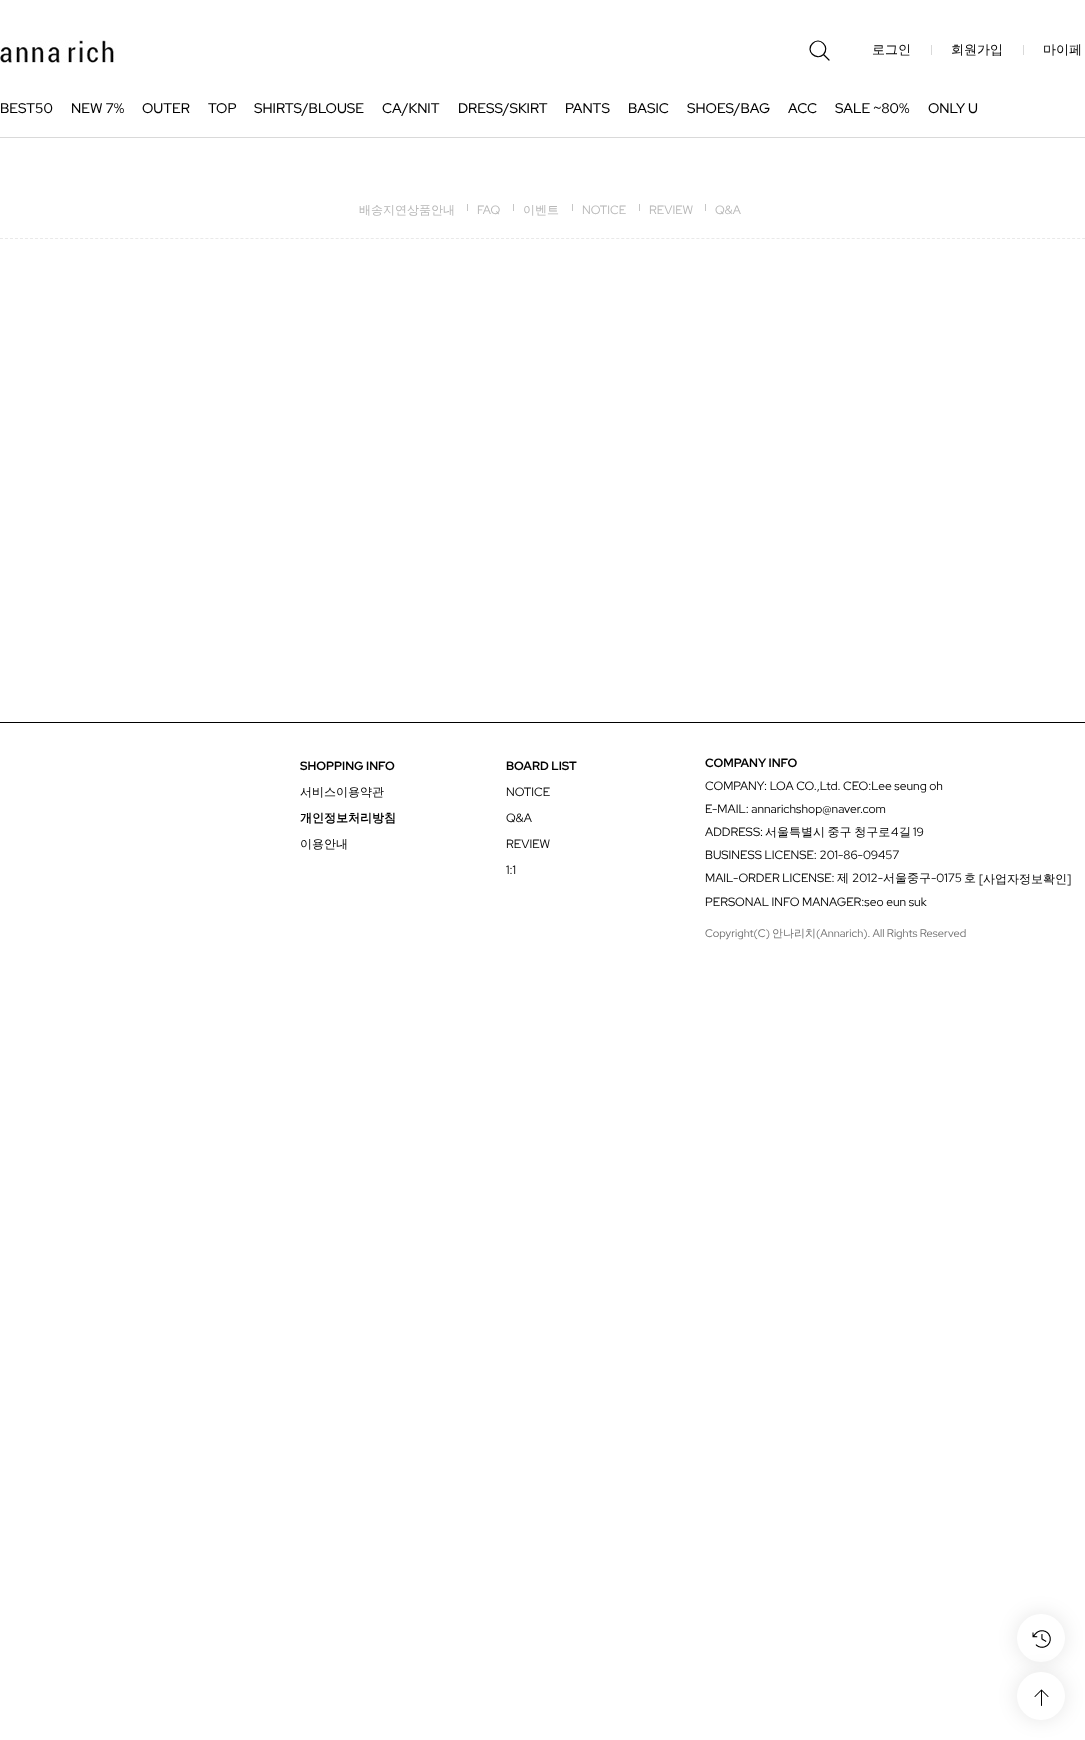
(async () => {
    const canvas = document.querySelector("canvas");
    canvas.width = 1085;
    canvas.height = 1740;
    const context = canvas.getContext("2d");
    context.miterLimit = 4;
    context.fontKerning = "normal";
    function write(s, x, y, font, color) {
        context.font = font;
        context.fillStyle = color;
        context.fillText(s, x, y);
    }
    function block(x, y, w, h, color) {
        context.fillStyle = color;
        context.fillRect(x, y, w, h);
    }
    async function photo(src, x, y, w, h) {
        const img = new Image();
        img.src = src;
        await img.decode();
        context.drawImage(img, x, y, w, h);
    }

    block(0, 0, 1085, 1740, "rgb(255, 255, 255)");
    block(0, 137, 1085, 1, "rgb(217, 217, 217)");
    await photo("media/1.png", 0, 40, 116, 23);
    context.beginPath();
    context.moveTo(829, 60);
    context.lineTo(823.5, 54.5);
    context.moveTo(823.5, 54.5);
    context.bezierCurveTo(830.5, 47, 819.5, 36, 812.5, 43.5);
    context.bezierCurveTo(805, 50.5, 816, 61.5, 823.5, 54.5);
    context.closePath();
    context.strokeStyle = "rgb(0, 0, 0)";
    context.lineWidth = 1.2;
    context.lineCap = "round";
    context.lineJoin = "round";
    context.stroke();
    write("로그인", 872, 54, "500 13px WenQuanYi Zen Hei", "rgb(0, 0, 0)");
    block(931, 45, 1, 10, "rgb(217, 217, 217)");
    write("회원가입", 951, 54, "500 13px WenQuanYi Zen Hei", "rgb(0, 0, 0)");
    block(1023, 45, 1, 10, "rgb(217, 217, 217)");
    write("마이페", 1043, 54, "500 13px WenQuanYi Zen Hei", "rgb(0, 0, 0)");
    write("BEST50", 0, 113, "500 14px Red Hat Display", "rgb(0, 0, 0)");
    write("NEW 7%", 71, 113, "500 14px Red Hat Display", "rgb(0, 0, 0)");
    write("OUTER", 142, 113, "500 14px Red Hat Display", "rgb(0, 0, 0)");
    write("TOP", 208, 113, "500 14px Red Hat Display", "rgb(0, 0, 0)");
    write("SHIRTS/BLOUSE", 254, 113, "500 14px Red Hat Display", "rgb(0, 0, 0)");
    write("CA/KNIT", 382, 113, "500 14px Red Hat Display", "rgb(0, 0, 0)");
    write("DRESS/SKIRT", 458, 113, "500 14px Red Hat Display", "rgb(0, 0, 0)");
    write("PANTS", 565, 113, "500 14px Red Hat Display", "rgb(0, 0, 0)");
    write("BASIC", 628, 113, "500 14px Red Hat Display", "rgb(0, 0, 0)");
    write("SHOES/BAG", 687, 113, "500 14px Red Hat Display", "rgb(0, 0, 0)");
    write("ACC", 788, 113, "500 14px Red Hat Display", "rgb(0, 0, 0)");
    write("SALE ~80%", 835, 113, "500 14px Red Hat Display", "rgb(0, 0, 0)");
    write("ONLY U", 928, 113, "500 14px Red Hat Display", "rgb(0, 0, 0)");
    context.beginPath();
    context.moveTo(0, 238.5);
    context.lineTo(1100, 238.5);
    context.strokeStyle = "rgb(233, 233, 233)";
    context.lineWidth = 1;
    context.lineCap = "butt";
    context.lineJoin = "miter";
    context.setLineDash([3, 2.01]);
    context.stroke();
    write("배송지연상품안내", 359, 214, "500 12px WenQuanYi Zen Hei", "rgb(183, 183, 183)");
    write("FAQ", 477, 214, "12px Red Hat Display", "rgb(183, 183, 183)");
    block(467, 204, 1, 7, "rgb(197, 197, 197)");
    write("이벤트", 523, 214, "500 12px WenQuanYi Zen Hei", "rgb(183, 183, 183)");
    block(513, 204, 1, 7, "rgb(197, 197, 197)");
    write("NOTICE", 582, 214, "12px Red Hat Display", "rgb(183, 183, 183)");
    block(572, 204, 1, 7, "rgb(197, 197, 197)");
    write("REVIEW", 649, 214, "12px Red Hat Display", "rgb(183, 183, 183)");
    block(639, 204, 1, 7, "rgb(197, 197, 197)");
    write("Q&A", 715, 214, "12px Red Hat Display", "rgb(183, 183, 183)");
    block(705, 204, 1, 7, "rgb(197, 197, 197)");
    block(0, 722, 1085, 1, "rgb(0, 0, 0)");
    write("SHOPPING INFO", 300, 770, "bold 12px Red Hat Display", "rgb(0, 0, 0)");
    write("서비스이용약관", 300, 796, "500 12px WenQuanYi Zen Hei", "rgb(0, 0, 0)");
    write("개인정보처리방침", 300, 822, "bold 12px WenQuanYi Zen Hei", "rgb(0, 0, 0)");
    write("이용안내", 300, 848, "500 12px WenQuanYi Zen Hei", "rgb(0, 0, 0)");
    write("BOARD LIST", 506, 770, "bold 12px Red Hat Display", "rgb(0, 0, 0)");
    write("NOTICE", 506, 796, "12px Red Hat Display", "rgb(0, 0, 0)");
    write("Q&A", 506, 822, "12px Red Hat Display", "rgb(0, 0, 0)");
    write("REVIEW", 506, 848, "12px Red Hat Display", "rgb(0, 0, 0)");
    write("1:1", 506, 874, "12px Red Hat Display", "rgb(0, 0, 0)");
    write("COMPANY INFO", 705, 767, "bold 12px Red Hat Display", "rgb(0, 0, 0)");
    write("COMPANY: LOA CO.,Ltd. CEO:Lee seung oh", 705, 790, "12px Red Hat Display", "rgb(0, 0, 0)");
    write("E-MAIL: annarichshop@naver.com", 705, 813, "12px Red Hat Display", "rgb(0, 0, 0)");
    write("ADDRESS:", 705, 836, "12px Red Hat Display", "rgb(0, 0, 0)");
    context.wordSpacing = "-1px";
    write("서울특별시 중구 청구로", 765, 836, "500 12px WenQuanYi Zen Hei", "rgb(0, 0, 0)");
    context.wordSpacing = "0px";
    write("4", 891, 836, "12px Red Hat Display", "rgb(0, 0, 0)");
    write("길", 899, 836, "500 12px WenQuanYi Zen Hei", "rgb(0, 0, 0)");
    write("19", 913, 836, "12px Red Hat Display", "rgb(0, 0, 0)");
    write("BUSINESS LICENSE: 201-86-09457", 705, 859, "12px Red Hat Display", "rgb(0, 0, 0)");
    write("MAIL-ORDER LICENSE:", 705, 882, "12px Red Hat Display", "rgb(0, 0, 0)");
    write("제", 837, 882, "500 12px WenQuanYi Zen Hei", "rgb(0, 0, 0)");
    write("2012-", 852, 882, "12px Red Hat Display", "rgb(0, 0, 0)");
    write("서울중구", 883, 882, "500 12px WenQuanYi Zen Hei", "rgb(0, 0, 0)");
    write("-0175", 931, 882, "12px Red Hat Display", "rgb(0, 0, 0)");
    write("호", 964, 882, "500 12px WenQuanYi Zen Hei", "rgb(0, 0, 0)");
    write("[", 979, 883, "12px Red Hat Display", "rgb(0, 0, 0)");
    write("사업자정보확인", 983, 883, "500 12px WenQuanYi Zen Hei", "rgb(0, 0, 0)");
    write("]", 1067, 883, "12px Red Hat Display", "rgb(0, 0, 0)");
    write("PERSONAL INFO MANAGER:seo eun suk", 705, 906, "12px Red Hat Display", "rgb(0, 0, 0)");
    write("Copyright(C)", 705, 937, "11px Red Hat Display", "rgb(112, 112, 112)");
    write("안나리치", 772, 937, "500 11px WenQuanYi Zen Hei", "rgb(112, 112, 112)");
    write("(Annarich). All Rights Reserved", 816, 937, "11px Red Hat Display", "rgb(112, 112, 112)");
    context.fillStyle = "rgba(0, 0, 0, 0.1)";
    context.filter = "blur(10px)";
    context.beginPath();
    context.roundRect(1017, 1614, 48, 48, 24);
    context.fill();
    context.filter = "none";
    context.fillStyle = "rgb(255, 255, 255)";
    context.beginPath();
    context.arc(1041, 1638, 24, 0, Math.PI * 2);
    context.fill();
    await photo("media/2.png", 1032, 1630, 19, 18);
    context.fillStyle = "rgba(0, 0, 0, 0.1)";
    context.filter = "blur(10px)";
    context.beginPath();
    context.roundRect(1017, 1672, 48, 48, 24);
    context.fill();
    context.filter = "none";
    context.fillStyle = "rgb(255, 255, 255)";
    context.beginPath();
    context.arc(1041, 1696, 24, 0, Math.PI * 2);
    context.fill();
    await photo("media/3.png", 1034, 1689, 15, 17);
})();
